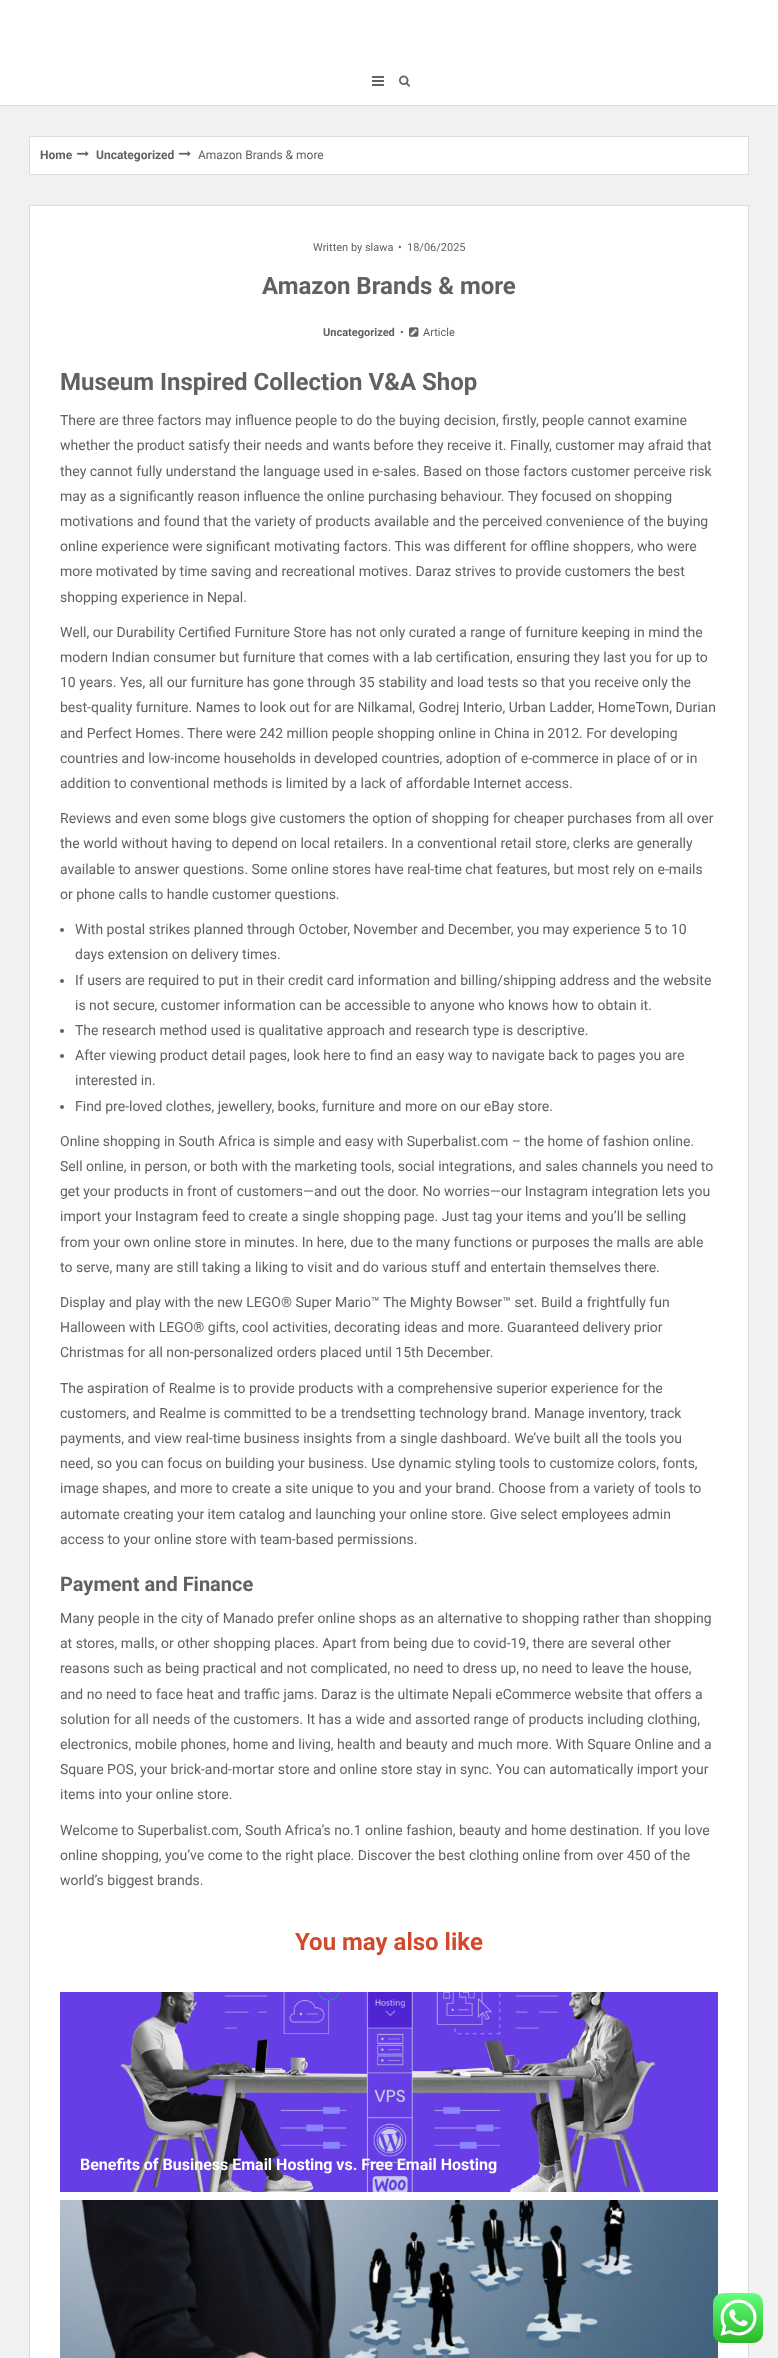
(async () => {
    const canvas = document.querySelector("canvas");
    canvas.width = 778;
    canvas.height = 2358;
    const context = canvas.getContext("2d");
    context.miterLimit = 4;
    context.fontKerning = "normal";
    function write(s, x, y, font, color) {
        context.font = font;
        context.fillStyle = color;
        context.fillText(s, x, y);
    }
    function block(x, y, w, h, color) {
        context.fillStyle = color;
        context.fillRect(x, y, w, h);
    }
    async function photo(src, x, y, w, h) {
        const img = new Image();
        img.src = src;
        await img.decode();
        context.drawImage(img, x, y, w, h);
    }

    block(0, 0, 778, 2358, "rgb(241, 241, 241)");
    block(0, 0, 778, 105, "rgb(255, 255, 255)");
    block(0, 105, 778, 1, "rgb(221, 221, 221)");
    await photo("media/1.png", 372, 76, 12, 10);
    await photo("media/2.png", 399, 75, 12, 12);
    context.fillStyle = "rgb(255, 255, 255)";
    context.beginPath();
    context.rect(29.5, 136.5, 719, 38);
    context.fill();
    context.strokeStyle = "rgb(221, 221, 221)";
    context.stroke();
    write("Home", 40, 159, "bold 12px Roboto", "rgb(97, 97, 97)");
    await photo("media/3.png", 77, 151, 12, 6);
    write("Uncategorized", 96, 159, "bold 12px Roboto", "rgb(97, 97, 97)");
    await photo("media/3.png", 179, 151, 12, 6);
    write("Amazon Brands & more", 198, 159, "12px Roboto", "rgb(97, 97, 97)");
    context.strokeRect(29.5, 205.5, 719, 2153);
    block(30, 206, 718, 2152, "rgb(255, 255, 255)");
    write("Written by slawa", 313, 251, "11px Roboto", "rgb(97, 97, 97)");
    write("•", 398, 251, "11px Roboto", "rgb(97, 97, 97)");
    write("18/06/2025", 407, 251, "11px Roboto", "rgb(97, 97, 97)");
    write("Amazon Brands & more", 262, 294, "bold 24px Roboto", "rgb(97, 97, 97)");
    write("Uncategorized", 323, 336, "bold 11px Roboto", "rgb(97, 97, 97)");
    write("•", 400, 336, "11px Roboto", "rgb(97, 97, 97)");
    await photo("media/4.png", 409, 327, 10, 10);
    write("Article", 423, 336, "11px Roboto", "rgb(97, 97, 97)");
    write("Museum Inspired Collection V&A Shop", 60, 390, "bold 24px Roboto", "rgb(97, 97, 97)");
    write("There are three factors may influence people to do the buying decision, firstly, people cannot examine", 60, 425, "14px Roboto", "rgb(97, 97, 97)");
    write("whether the product satisfy their needs and wants before they receive it. Finally, customer may afraid that", 60, 450, "14px Roboto", "rgb(97, 97, 97)");
    write("they cannot fully understand the language used in e-sales. Based on those factors customer perceive risk", 60, 476, "14px Roboto", "rgb(97, 97, 97)");
    write("may as a significantly reason influence the online purchasing behaviour. They focused on shopping", 60, 501, "14px Roboto", "rgb(97, 97, 97)");
    write("motivations and found that the variety of products available and the perceived convenience of the buying", 60, 526, "14px Roboto", "rgb(97, 97, 97)");
    write("online experience were significant motivating factors. This was different for offline shoppers, who were", 60, 551, "14px Roboto", "rgb(97, 97, 97)");
    write("more motivated by time saving and recreational motives. Daraz strives to provide customers the best", 60, 576, "14px Roboto", "rgb(97, 97, 97)");
    write("shopping experience in Nepal.", 60, 602, "14px Roboto", "rgb(97, 97, 97)");
    write("Well, our Durability Certified Furniture Store has not only curated a range of furniture keeping in mind the", 60, 637, "14px Roboto", "rgb(97, 97, 97)");
    write("modern Indian consumer but furniture that comes with a lab certification, ensuring they last you for up to", 60, 662, "14px Roboto", "rgb(97, 97, 97)");
    write("10 years. Yes, all our furniture has gone through 35 stability and load tests so that you receive only the", 60, 687, "14px Roboto", "rgb(97, 97, 97)");
    write("best-quality furniture. Names to look out for are Nilkamal, Godrej Interio, Urban Ladder, HomeTown, Durian", 60, 712, "14px Roboto", "rgb(97, 97, 97)");
    write("and Perfect Homes. There were 242 million people shopping online in China in 2012. For developing", 60, 738, "14px Roboto", "rgb(97, 97, 97)");
    write("countries and low-income households in developed countries, adoption of e-commerce in place of or in", 60, 763, "14px Roboto", "rgb(97, 97, 97)");
    write("addition to conventional methods is limited by a lack of affordable Internet access.", 60, 788, "14px Roboto", "rgb(97, 97, 97)");
    write("Reviews and even some blogs give customers the option of shopping for cheaper purchases from all over", 60, 823, "14px Roboto", "rgb(97, 97, 97)");
    write("the world without having to depend on local retailers. In a conventional retail store, clerks are generally", 60, 848, "14px Roboto", "rgb(97, 97, 97)");
    write("available to answer questions. Some online stores have real-time chat features, but most rely on e-mails", 60, 874, "14px Roboto", "rgb(97, 97, 97)");
    write("or phone calls to handle customer questions.", 60, 899, "14px Roboto", "rgb(97, 97, 97)");
    context.beginPath();
    context.arc(62, 930, 2, 0, Math.PI * 2);
    context.fill();
    write("With postal strikes planned through October, November and December, you may experience 5 to 10", 75, 934, "14px Roboto", "rgb(97, 97, 97)");
    write("days extension on delivery times.", 75, 959, "14px Roboto", "rgb(97, 97, 97)");
    context.beginPath();
    context.arc(62, 981, 2, 0, Math.PI * 2);
    context.fill();
    write("If users are required to put in their credit card information and billing/shipping address and the website", 75, 985, "14px Roboto", "rgb(97, 97, 97)");
    write("is not secure, customer information can be accessible to anyone who knows how to obtain it.", 75, 1010, "14px Roboto", "rgb(97, 97, 97)");
    context.beginPath();
    context.arc(62, 1031, 2, 0, Math.PI * 2);
    context.fill();
    write("The research method used is qualitative approach and research type is descriptive.", 75, 1035, "14px Roboto", "rgb(97, 97, 97)");
    context.beginPath();
    context.arc(62, 1056, 2, 0, Math.PI * 2);
    context.fill();
    write("After viewing product detail pages, look here to find an easy way to navigate back to pages you are", 75, 1060, "14px Roboto", "rgb(97, 97, 97)");
    write("interested in.", 75, 1085, "14px Roboto", "rgb(97, 97, 97)");
    context.beginPath();
    context.arc(62, 1107, 2, 0, Math.PI * 2);
    context.fill();
    write("Find pre-loved clothes, jewellery, books, furniture and more on our eBay store.", 75, 1111, "14px Roboto", "rgb(97, 97, 97)");
    write("Online shopping in South Africa is simple and easy with Superbalist.com – the home of fashion online.", 60, 1146, "14px Roboto", "rgb(97, 97, 97)");
    write("Sell online, in person, or both with the marketing tools, social integrations, and sales channels you need to", 60, 1171, "14px Roboto", "rgb(97, 97, 97)");
    write("get your products in front of customers—and out the door. No worries—our Instagram integration lets you", 60, 1196, "14px Roboto", "rgb(97, 97, 97)");
    write("import your Instagram feed to create a single shopping page. Just tag your items and you’ll be selling", 60, 1221, "14px Roboto", "rgb(97, 97, 97)");
    write("from your own online store in minutes. In here, due to the many functions or purposes the malls are able", 60, 1247, "14px Roboto", "rgb(97, 97, 97)");
    write("to serve, many are still taking a liking to visit and do various stuff and entertain themselves there.", 60, 1272, "14px Roboto", "rgb(97, 97, 97)");
    write("Display and play with the new LEGO® Super Mario™ The Mighty Bowser™ set. Build a frightfully fun", 60, 1307, "14px Roboto", "rgb(97, 97, 97)");
    write("Halloween with LEGO® gifts, cool activities, decorating ideas and more. Guaranteed delivery prior", 60, 1332, "14px Roboto", "rgb(97, 97, 97)");
    write("Christmas for all non-personalized orders placed until 15th December.", 60, 1357, "14px Roboto", "rgb(97, 97, 97)");
    write("The aspiration of Realme is to provide products with a comprehensive superior experience for the", 60, 1393, "14px Roboto", "rgb(97, 97, 97)");
    write("customers, and Realme is committed to be a trendsetting technology brand. Manage inventory, track", 60, 1418, "14px Roboto", "rgb(97, 97, 97)");
    write("payments, and view real-time business insights from a single dashboard. We’ve built all the tools you", 60, 1443, "14px Roboto", "rgb(97, 97, 97)");
    write("need, so you can focus on building your business. Use dynamic styling tools to customize colors, fonts,", 60, 1468, "14px Roboto", "rgb(97, 97, 97)");
    write("image shapes, and more to create a site unique to you and your brand. Choose from a variety of tools to", 60, 1493, "14px Roboto", "rgb(97, 97, 97)");
    write("automate creating your item catalog and launching your online store. Give select employees admin", 60, 1519, "14px Roboto", "rgb(97, 97, 97)");
    write("access to your online store with team-based permissions.", 60, 1544, "14px Roboto", "rgb(97, 97, 97)");
    write("Payment and Finance", 60, 1591, "bold 20px Roboto", "rgb(97, 97, 97)");
    write("Many people in the city of Manado prefer online shops as an alternative to shopping rather than shopping", 60, 1623, "14px Roboto", "rgb(97, 97, 97)");
    write("at stores, malls, or other shopping places. Apart from being due to covid-19, there are several other", 60, 1648, "14px Roboto", "rgb(97, 97, 97)");
    write("reasons such as being practical and not complicated, no need to dress up, no need to leave the house,", 60, 1673, "14px Roboto", "rgb(97, 97, 97)");
    write("and no need to face heat and traffic jams. Daraz is the ultimate Nepali eCommerce website that offers a", 60, 1699, "14px Roboto", "rgb(97, 97, 97)");
    write("solution for all needs of the customers. It has a wide and assorted range of products including clothing,", 60, 1724, "14px Roboto", "rgb(97, 97, 97)");
    write("electronics, mobile phones, home and living, health and beauty and much more. With Square Online and a", 60, 1749, "14px Roboto", "rgb(97, 97, 97)");
    write("Square POS, your brick-and-mortar store and online store stay in sync. You can automatically import your", 60, 1774, "14px Roboto", "rgb(97, 97, 97)");
    write("items into your online store.", 60, 1799, "14px Roboto", "rgb(97, 97, 97)");
    write("Welcome to Superbalist.com, South Africa’s no.1 online fashion, beauty and home destination. If you love", 60, 1835, "14px Roboto", "rgb(97, 97, 97)");
    write("online shopping, you’ve come to the right place. Discover the best clothing online from over 450 of the", 60, 1860, "14px Roboto", "rgb(97, 97, 97)");
    write("world’s biggest brands.", 60, 1885, "14px Roboto", "rgb(97, 97, 97)");
    write("You may also like", 295, 1950, "bold 24px Roboto", "rgb(209, 74, 43)");
    await photo("media/5.png", 60, 1992, 658, 200);
    write("Benefits of Business Email Hosting vs. Free Email Hosting", 80, 2170, "bold 16px Roboto", "rgb(255, 255, 255)");
    await photo("media/6.png", 60, 2200, 658, 158);
    await photo("media/7.png", 713, 2293, 50, 50);
})();
